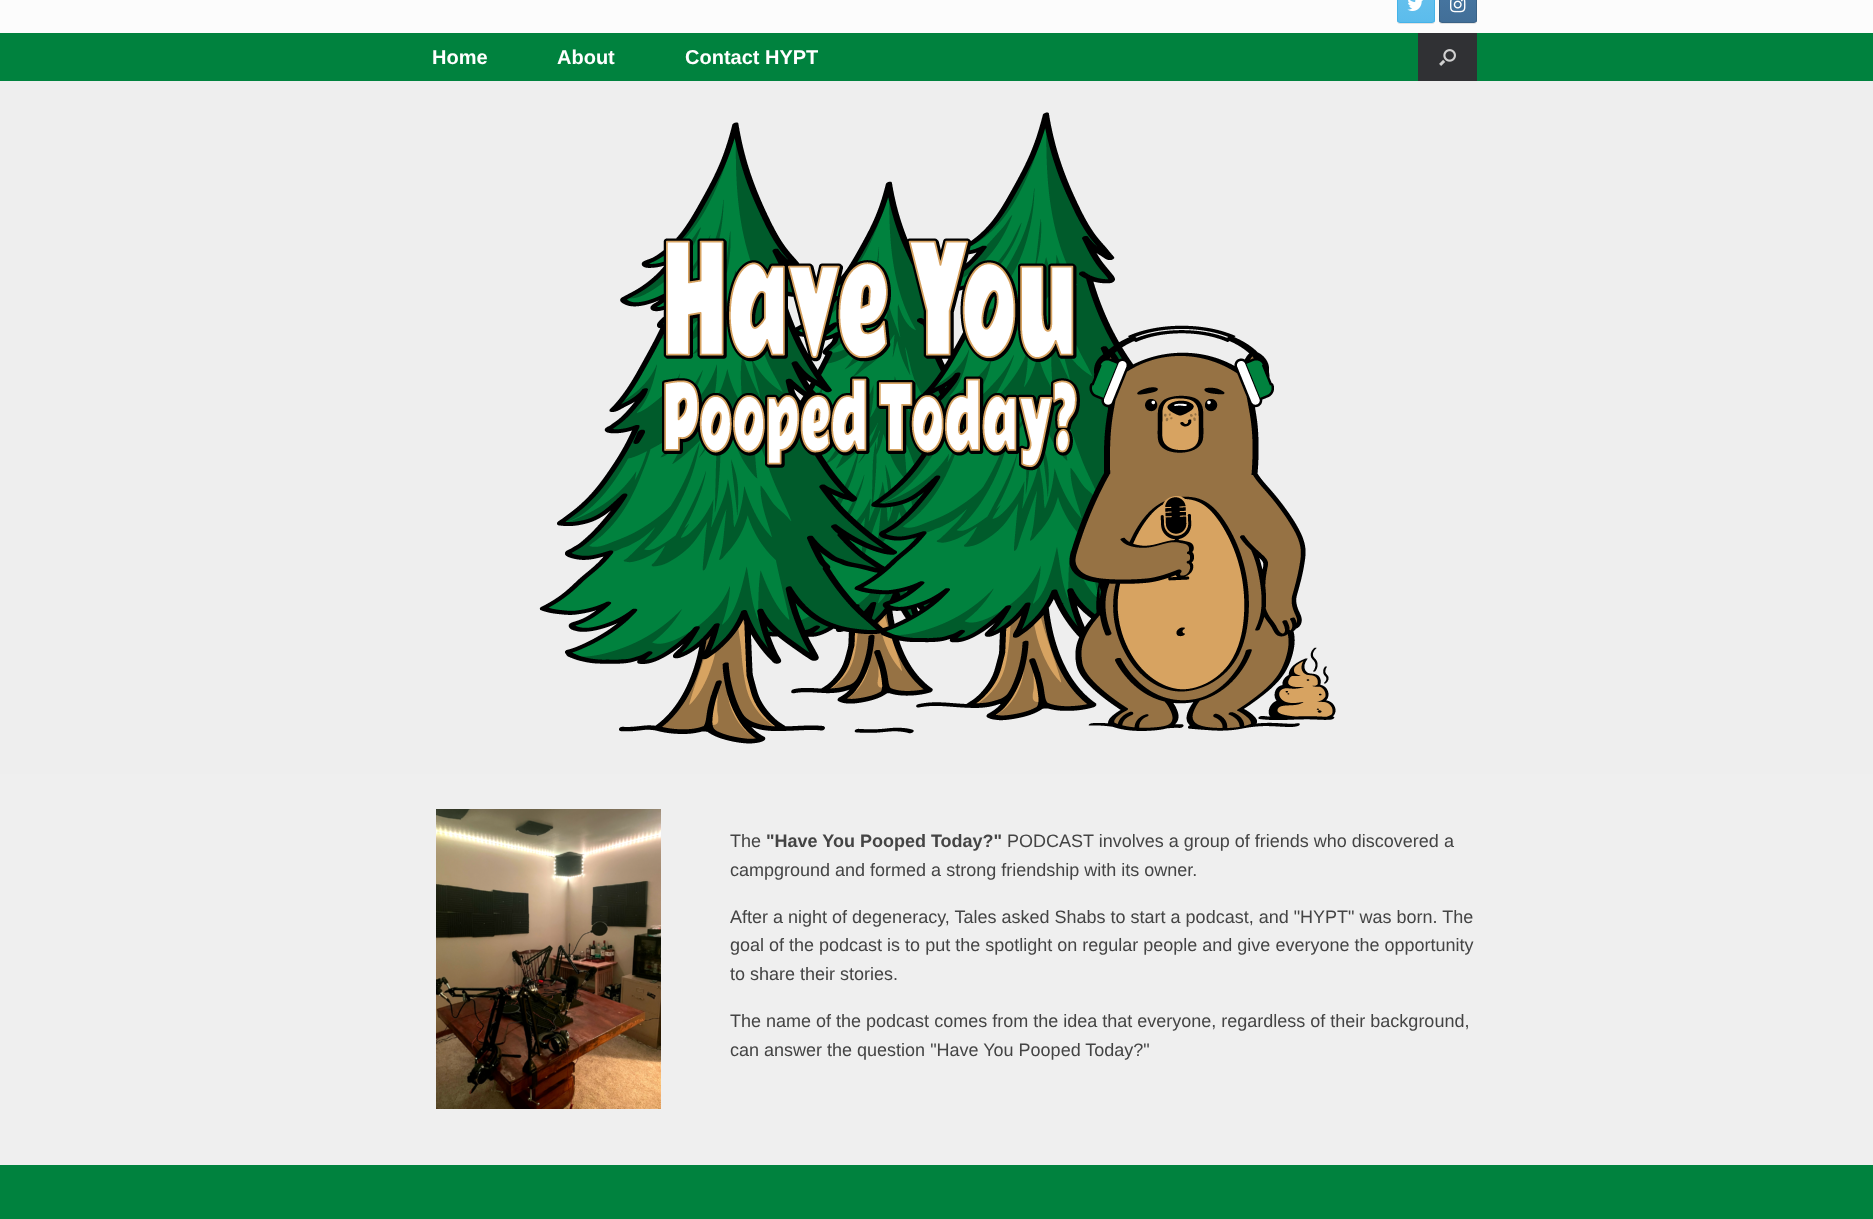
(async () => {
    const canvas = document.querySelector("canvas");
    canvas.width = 1873;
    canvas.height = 1219;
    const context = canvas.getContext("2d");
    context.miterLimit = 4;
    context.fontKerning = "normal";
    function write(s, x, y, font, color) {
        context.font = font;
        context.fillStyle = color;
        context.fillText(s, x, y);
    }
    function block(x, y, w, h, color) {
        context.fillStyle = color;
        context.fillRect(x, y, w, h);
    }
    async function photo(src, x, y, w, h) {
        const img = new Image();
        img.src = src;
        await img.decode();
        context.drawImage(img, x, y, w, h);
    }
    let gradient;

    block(0, 0, 1873, 1219, "rgb(0, 130, 62)");
    block(0, 0, 1873, 33, "rgb(252, 252, 252)");
    context.fillStyle = "rgba(0, 0, 0, 0.1)";
    context.filter = "blur(0.5px)";
    context.beginPath();
    context.roundRect(1397, -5, 38, 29, 3);
    context.fill();
    context.filter = "none";
    context.save();
    context.beginPath();
    context.roundRect(1397, -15, 38, 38, 3);
    context.clip();
    gradient = context.createLinearGradient(1398, 22, 1398, -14);
    gradient.addColorStop(0, "rgb(91, 188, 236)");
    gradient.addColorStop(1, "rgb(105, 194, 238)");
    context.fillStyle = gradient;
    context.fillRect(1397, 0, 38, 22);
    context.restore();
    context.beginPath();
    context.roundRect(1397.5, -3.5, 37, 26, 2.5);
    context.strokeStyle = "rgb(68, 179, 233)";
    context.stroke();
    await photo("media/1.png", 1407, 0, 16, 11);
    context.filter = "blur(0.5px)";
    context.beginPath();
    context.roundRect(1439, -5, 38, 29, 3);
    context.fill();
    context.filter = "none";
    context.save();
    context.beginPath();
    context.roundRect(1439, -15, 38, 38, 3);
    context.clip();
    gradient = context.createLinearGradient(1440, 22, 1440, -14);
    gradient.addColorStop(0, "rgb(66, 111, 152)");
    gradient.addColorStop(1, "rgb(71, 119, 163)");
    context.fillStyle = gradient;
    context.fillRect(1439, 0, 38, 22);
    context.restore();
    context.beginPath();
    context.roundRect(1439.5, -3.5, 37, 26, 2.5);
    context.strokeStyle = "rgb(58, 98, 134)";
    context.stroke();
    await photo("media/2.png", 1450, 0, 16, 13);
    write("Home", 432, 64, "bold 20px Liberation Sans", "rgb(255, 255, 255)");
    write("About", 557, 64, "bold 20px Liberation Sans", "rgb(255, 255, 255)");
    write("Contact HYPT", 685, 64, "bold 20px Liberation Sans", "rgb(255, 255, 255)");
    block(1418, 33, 59, 48, "rgb(48, 49, 52)");
    await photo("media/3.png", 1439, 49, 17, 17);
    block(0, 81, 1873, 693, "rgb(238, 238, 238)");
    await photo("media/4.png", 539, 112, 797, 632);
    block(0, 774, 1873, 391, "rgb(239, 239, 239)");
    await photo("media/5.png", 436, 809, 225, 300);
    write("The", 730, 847, "18px Liberation Sans", "rgb(68, 68, 68)");
    write("\"Have You Pooped Today?\"", 766, 847, "bold 18px Liberation Sans", "rgb(68, 68, 68)");
    write("PODCAST involves a group of friends who discovered a", 1007, 847, "18px Liberation Sans", "rgb(68, 68, 68)");
    write("campground and formed a strong friendship with its owner.", 730, 876, "18px Liberation Sans", "rgb(68, 68, 68)");
    write("After a night of degeneracy, Tales asked Shabs to start a podcast, and \"HYPT\" was born. The", 730, 923, "18px Liberation Sans", "rgb(68, 68, 68)");
    write("goal of the podcast is to put the spotlight on regular people and give everyone the opportunity", 730, 951, "18px Liberation Sans", "rgb(68, 68, 68)");
    write("to share their stories.", 730, 980, "18px Liberation Sans", "rgb(68, 68, 68)");
    write("The name of the podcast comes from the idea that everyone, regardless of their background,", 730, 1027, "18px Liberation Sans", "rgb(68, 68, 68)");
    write("can answer the question \"Have You Pooped Today?\"", 730, 1056, "18px Liberation Sans", "rgb(68, 68, 68)");
})();
